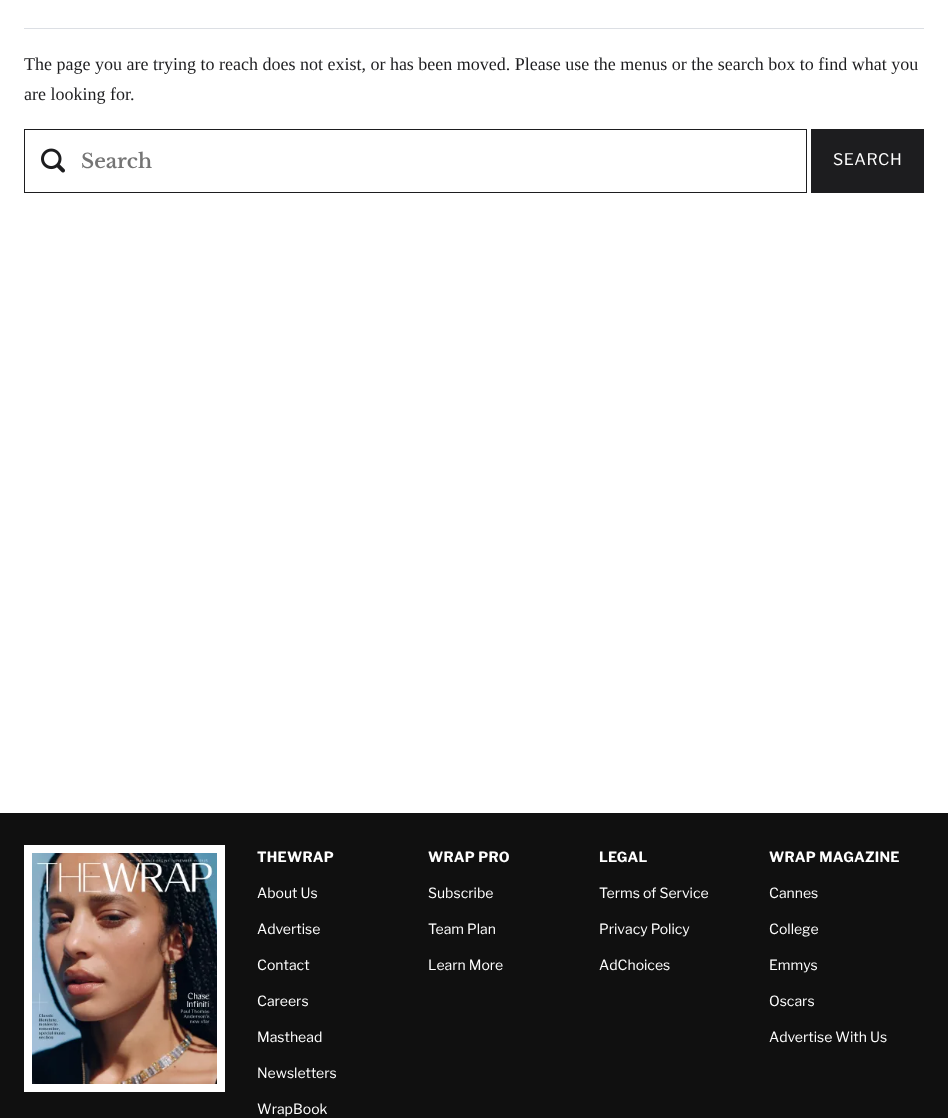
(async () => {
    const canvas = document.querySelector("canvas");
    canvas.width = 948;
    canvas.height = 1118;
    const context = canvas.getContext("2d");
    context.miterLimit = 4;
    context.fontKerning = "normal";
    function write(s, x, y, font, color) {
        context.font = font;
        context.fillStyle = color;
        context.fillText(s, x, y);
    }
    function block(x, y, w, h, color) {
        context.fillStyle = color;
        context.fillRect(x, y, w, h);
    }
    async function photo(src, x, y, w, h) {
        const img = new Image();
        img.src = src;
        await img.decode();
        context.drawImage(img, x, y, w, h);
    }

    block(0, 0, 948, 1118, "rgb(255, 255, 255)");
    block(24, 28, 900, 1, "rgb(220, 223, 228)");
    write("The page you are trying to reach does not exist, or has been moved. Please use the menus or the search box to find what you", 24, 70, "18px Liberation Serif", "rgb(29, 29, 31)");
    write("are looking for.", 24, 100, "18px Liberation Serif", "rgb(29, 29, 31)");
    context.strokeStyle = "rgb(29, 29, 31)";
    context.strokeRect(24.5, 129.5, 782, 63);
    await photo("media/1.png", 41, 148, 24, 25);
    write("Search", 81, 168, "600 20px Libre Baskerville", "rgb(117, 117, 117)");
    block(811, 129, 113, 64, "rgb(29, 29, 31)");
    context.letterSpacing = "0.5px";
    write("SEARCH", 833, 165, "16px Libre Franklin", "rgb(255, 255, 255)");
    block(0, 813, 948, 305, "rgb(16, 16, 16)");
    context.strokeStyle = "rgb(255, 255, 255)";
    context.lineWidth = 8;
    context.strokeRect(28, 849, 193, 239);
    await photo("media/2.png", 32, 853, 185, 231);
    context.letterSpacing = "0.25px";
    write("THEWRAP", 257, 862, "bold 14px Libre Franklin", "rgb(255, 255, 255)");
    context.letterSpacing = "0px";
    write("About Us", 257, 898, "14px Libre Franklin", "rgb(255, 255, 255)");
    write("Advertise", 257, 934, "14px Libre Franklin", "rgb(255, 255, 255)");
    write("Contact", 257, 970, "14px Libre Franklin", "rgb(255, 255, 255)");
    write("Careers", 257, 1006, "14px Libre Franklin", "rgb(255, 255, 255)");
    write("Masthead", 257, 1042, "14px Libre Franklin", "rgb(255, 255, 255)");
    write("Newsletters", 257, 1078, "14px Libre Franklin", "rgb(255, 255, 255)");
    write("WrapBook", 257, 1114, "14px Libre Franklin", "rgb(255, 255, 255)");
    context.letterSpacing = "0.25px";
    write("WRAP PRO", 428, 862, "bold 14px Libre Franklin", "rgb(255, 255, 255)");
    context.letterSpacing = "0px";
    write("Subscribe", 428, 898, "14px Libre Franklin", "rgb(255, 255, 255)");
    write("Team Plan", 428, 934, "14px Libre Franklin", "rgb(255, 255, 255)");
    write("Learn More", 428, 970, "14px Libre Franklin", "rgb(255, 255, 255)");
    context.letterSpacing = "0.25px";
    write("LEGAL", 599, 862, "bold 14px Libre Franklin", "rgb(255, 255, 255)");
    context.letterSpacing = "0px";
    write("Terms of Service", 599, 898, "14px Libre Franklin", "rgb(255, 255, 255)");
    write("Privacy Policy", 599, 934, "14px Libre Franklin", "rgb(255, 255, 255)");
    write("AdChoices", 599, 970, "14px Libre Franklin", "rgb(255, 255, 255)");
    context.letterSpacing = "0.25px";
    write("WRAP MAGAZINE", 769, 862, "bold 14px Libre Franklin", "rgb(255, 255, 255)");
    context.letterSpacing = "0px";
    write("Cannes", 769, 898, "14px Libre Franklin", "rgb(255, 255, 255)");
    write("College", 769, 934, "14px Libre Franklin", "rgb(255, 255, 255)");
    write("Emmys", 769, 970, "14px Libre Franklin", "rgb(255, 255, 255)");
    write("Oscars", 769, 1006, "14px Libre Franklin", "rgb(255, 255, 255)");
    write("Advertise With Us", 769, 1042, "14px Libre Franklin", "rgb(255, 255, 255)");
})();
